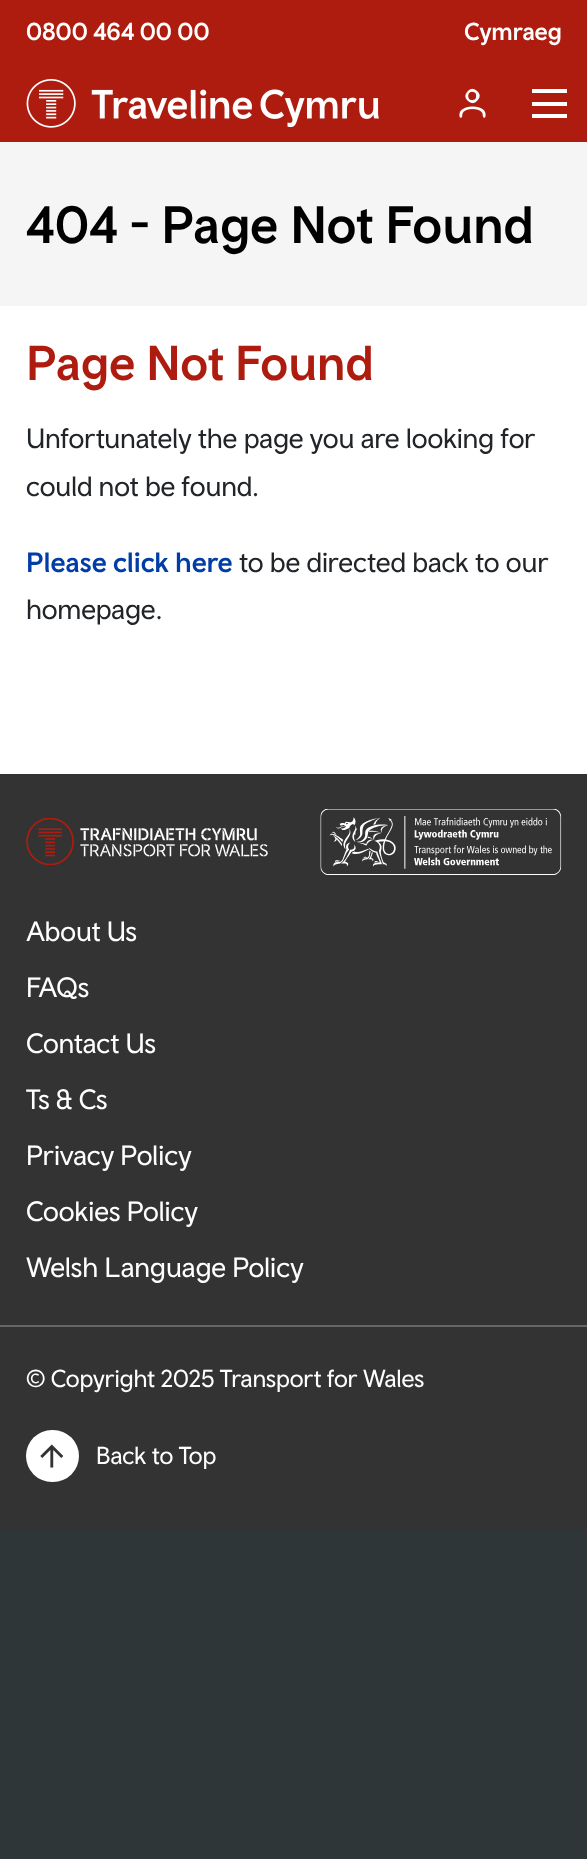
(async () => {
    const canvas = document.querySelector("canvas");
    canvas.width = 587;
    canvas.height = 1859;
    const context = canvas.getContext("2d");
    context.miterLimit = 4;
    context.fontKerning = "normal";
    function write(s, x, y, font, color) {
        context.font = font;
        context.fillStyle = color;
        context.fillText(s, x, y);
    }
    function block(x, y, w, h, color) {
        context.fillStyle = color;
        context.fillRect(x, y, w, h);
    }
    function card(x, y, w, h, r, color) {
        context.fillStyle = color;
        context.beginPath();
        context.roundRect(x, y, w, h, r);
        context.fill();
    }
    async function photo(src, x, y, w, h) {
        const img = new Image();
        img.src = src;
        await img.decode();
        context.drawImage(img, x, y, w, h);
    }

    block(0, 0, 587, 1859, "rgb(46, 54, 56)");
    block(0, 306, 587, 468, "rgb(255, 255, 255)");
    block(0, 0, 587, 142, "rgb(174, 28, 15)");
    write("0800 464 00 00", 26, 40, "500 24.5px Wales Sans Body", "rgb(255, 255, 255)");
    write("Cymraeg", 464, 40, "500 24.5px Wales Sans Body", "rgb(255, 255, 255)");
    await photo("media/1.png", 26, 79, 353, 49);
    await photo("media/2.png", 459, 88, 27, 30);
    block(532, 102, 35, 4, "rgb(255, 255, 255)");
    block(532, 89, 35, 4, "rgb(255, 255, 255)");
    block(532, 114, 35, 4, "rgb(255, 255, 255)");
    block(0, 142, 587, 164, "rgb(245, 245, 245)");
    write("404 - Page Not Found", 26, 243, "500 52.5px Wales Sans Body", "rgb(0, 0, 0)");
    write("Page Not Found", 26, 380, "500 49px Wales Sans Body", "rgb(174, 28, 15)");
    write("Unfortunately the page you are looking for", 26, 448, "28px Wales Sans Body", "rgb(33, 37, 41)");
    write("could not be found.", 26, 496, "28px Wales Sans Body", "rgb(33, 37, 41)");
    write("Please click here", 26, 572, "500 28px Wales Sans Body", "rgb(0, 61, 166)");
    write("to be directed back to our", 239, 572, "28px Wales Sans Body", "rgb(33, 37, 41)");
    write("homepage.", 26, 619, "28px Wales Sans Body", "rgb(33, 37, 41)");
    block(0, 774, 587, 756, "rgb(51, 51, 51)");
    await photo("media/3.png", 26, 818, 242, 47);
    await photo("media/4.png", 320, 809, 242, 66);
    block(0, 1325, 587, 2, "rgb(102, 102, 102)");
    write("About Us", 26, 941, "28px Wales Sans Body", "rgb(255, 255, 255)");
    write("FAQs", 26, 997, "28px Wales Sans Body", "rgb(255, 255, 255)");
    write("Contact Us", 26, 1053, "28px Wales Sans Body", "rgb(255, 255, 255)");
    write("Ts & Cs", 26, 1109, "28px Wales Sans Body", "rgb(255, 255, 255)");
    write("Privacy Policy", 26, 1165, "28px Wales Sans Body", "rgb(255, 255, 255)");
    write("Cookies Policy", 26, 1221, "28px Wales Sans Body", "rgb(255, 255, 255)");
    write("Welsh Language Policy", 26, 1277, "28px Wales Sans Body", "rgb(255, 255, 255)");
    write("© Copyright 2025 Transport for Wales", 26, 1387, "24.5px Wales Sans Body", "rgb(255, 255, 255)");
    card(26, 1430, 53, 52, 26, "rgb(255, 255, 255)");
    await photo("media/5.png", 40, 1444, 24, 24);
    write("Back to Top", 96, 1464, "24.5px Wales Sans Body", "rgb(255, 255, 255)");
})();
